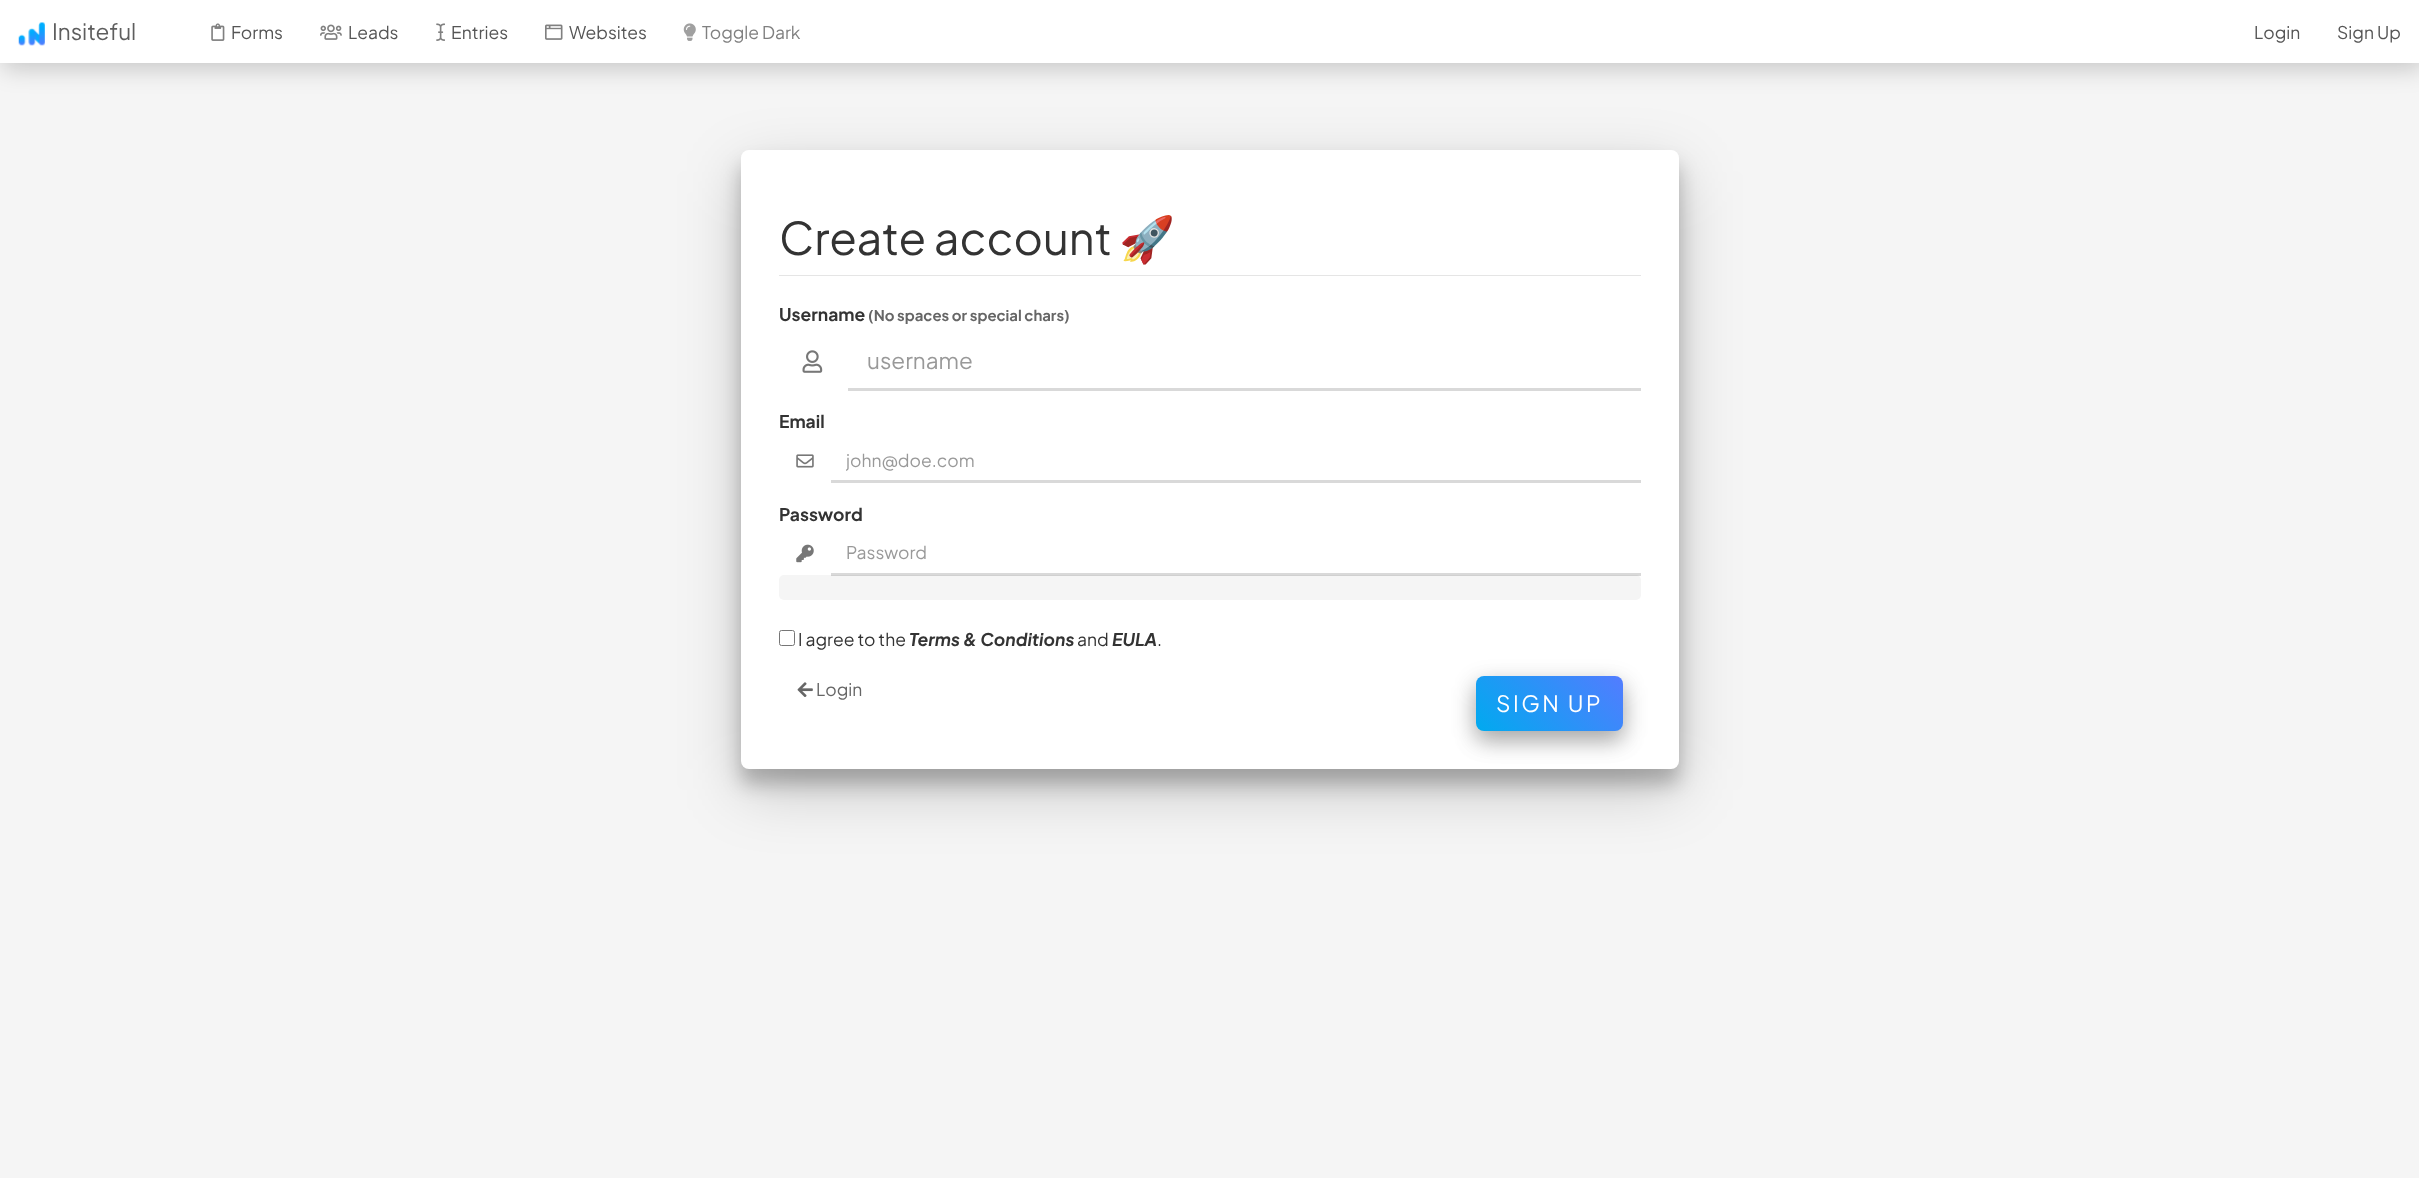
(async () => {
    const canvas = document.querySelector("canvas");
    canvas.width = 2419;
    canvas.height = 1178;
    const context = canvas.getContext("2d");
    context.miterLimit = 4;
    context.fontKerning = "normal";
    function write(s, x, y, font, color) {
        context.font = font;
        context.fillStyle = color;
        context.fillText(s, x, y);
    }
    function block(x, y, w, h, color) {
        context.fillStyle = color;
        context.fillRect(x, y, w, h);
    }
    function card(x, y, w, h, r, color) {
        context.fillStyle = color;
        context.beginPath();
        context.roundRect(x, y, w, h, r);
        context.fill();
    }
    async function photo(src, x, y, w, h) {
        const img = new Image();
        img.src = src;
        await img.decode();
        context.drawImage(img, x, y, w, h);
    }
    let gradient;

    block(0, 0, 2419, 1178, "rgb(245, 245, 245)");
    context.fillStyle = "rgba(0, 0, 0, 0.2)";
    context.filter = "blur(12.5px)";
    context.beginPath();
    context.rect(3, 5, 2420, 63);
    context.fill();
    context.filter = "none";
    block(0, 0, 2419, 63, "rgb(255, 255, 255)");
    await photo("media/1.png", 18, 22, 27, 24);
    write("Insiteful", 52, 40, "22.5px Plus Jakarta Sans", "rgb(94, 94, 94)");
    await photo("media/2.png", 211, 23, 14, 18);
    write("Forms", 231, 39, "17.5px Plus Jakarta Sans", "rgb(85, 85, 85)");
    await photo("media/3.png", 320, 24, 22, 16);
    write("Leads", 348, 39, "17.5px Plus Jakarta Sans", "rgb(85, 85, 85)");
    await photo("media/4.png", 436, 23, 9, 18);
    write("Entries", 451, 39, "17.5px Plus Jakarta Sans", "rgb(85, 85, 85)");
    await photo("media/5.png", 545, 24, 18, 16);
    write("Websites", 569, 39, "17.5px Plus Jakarta Sans", "rgb(85, 85, 85)");
    await photo("media/6.png", 683, 23, 13, 18);
    write("Toggle Dark", 702, 39, "17.5px Plus Jakarta Sans", "rgb(128, 128, 128)");
    write("Login", 2254, 39, "17.5px Plus Jakarta Sans", "rgb(85, 85, 85)");
    write("Sign Up", 2337, 39, "17.5px Plus Jakarta Sans", "rgb(85, 85, 85)");
    context.fillStyle = "rgba(0, 0, 0, 0.19)";
    context.filter = "blur(31px)";
    context.beginPath();
    context.roundRect(741, 171, 938, 619, 8);
    context.fill();
    context.filter = "none";
    context.fillStyle = "rgba(0, 0, 0, 0.24)";
    context.filter = "blur(9.5px)";
    context.beginPath();
    context.roundRect(741, 165, 938, 619, 8);
    context.fill();
    context.filter = "none";
    card(741, 150, 938, 619, 8, "rgb(255, 255, 255)");
    block(779, 275, 862, 1, "rgb(229, 229, 229)");
    write("Create account", 779, 255, "45px Plus Jakarta Sans", "rgb(51, 51, 51)");
    write("🚀", 1119, 255, "45px Noto Color Emoji", "rgb(51, 51, 51)");
    write("Username", 779, 321, "bold 17.5px Plus Jakarta Sans", "rgb(51, 51, 51)");
    write("(No spaces or special chars)", 868, 321, "bold 14.9px Plus Jakarta Sans", "rgb(102, 102, 102)");
    await photo("media/7.png", 802, 350, 21, 23);
    block(848, 388, 793, 3, "rgb(217, 217, 217)");
    write("username", 867, 369, "22.5px Plus Jakarta Sans", "rgb(153, 153, 153)");
    write("Email", 779, 428, "bold 17.5px Plus Jakarta Sans", "rgb(51, 51, 51)");
    await photo("media/8.png", 796, 454, 18, 14);
    block(831, 480, 810, 3, "rgb(217, 217, 217)");
    context.save();
    context.beginPath();
    context.rect(846, 449, 780, 22);
    context.clip();
    write("john@doe.com", 846, 467, "17.5px Plus Jakarta Sans", "rgb(153, 153, 153)");
    context.restore();
    write("Password", 779, 521, "bold 17.5px Plus Jakarta Sans", "rgb(51, 51, 51)");
    await photo("media/9.png", 796, 544, 18, 19);
    card(779, 575, 862, 25, 5, "rgb(245, 245, 245)");
    block(831, 573, 810, 3, "rgba(0, 0, 0, 0.15)");
    write("Password", 846, 559, "17.5px Plus Jakarta Sans", "rgb(153, 153, 153)");
    context.beginPath();
    context.roundRect(779.5, 630.5, 15, 15, 2);
    context.strokeStyle = "rgb(118, 118, 118)";
    context.stroke();
    write("I agree to the", 798, 646, "17.5px Plus Jakarta Sans", "rgb(51, 51, 51)");
    write("Terms & Conditions", 909, 646, "italic bold 17.5px Plus Jakarta Sans", "rgb(51, 51, 51)");
    write("and", 1077, 646, "17.5px Plus Jakarta Sans", "rgb(51, 51, 51)");
    write("EULA", 1112, 646, "italic bold 17.5px Plus Jakarta Sans", "rgb(51, 51, 51)");
    write(".", 1157, 646, "17.5px Plus Jakarta Sans", "rgb(51, 51, 51)");
    await photo("media/10.png", 797, 682, 16, 15);
    write("Login", 816, 696, "17.5px Plus Jakarta Sans", "rgb(102, 102, 102)");
    context.fillStyle = "rgba(0, 0, 0, 0.19)";
    context.filter = "blur(12.5px)";
    context.beginPath();
    context.roundRect(1476, 684, 147, 55, 8);
    context.fill();
    context.filter = "none";
    context.fillStyle = "rgba(0, 0, 0, 0.2)";
    context.filter = "blur(10.5px)";
    context.beginPath();
    context.roundRect(1476, 686, 147, 55, 8);
    context.fill();
    context.filter = "none";
    gradient = context.createLinearGradient(1499, 754, 1600, 653);
    gradient.addColorStop(0, "rgb(0, 170, 239)");
    gradient.addColorStop(1, "rgb(83, 124, 255)");
    context.fillStyle = gradient;
    context.beginPath();
    context.roundRect(1476, 676, 147, 55, 8);
    context.fill();
    context.letterSpacing = "2.5px";
    write("SIGN UP", 1496, 712, "22.5px Plus Jakarta Sans", "rgb(255, 255, 255)");
})();
